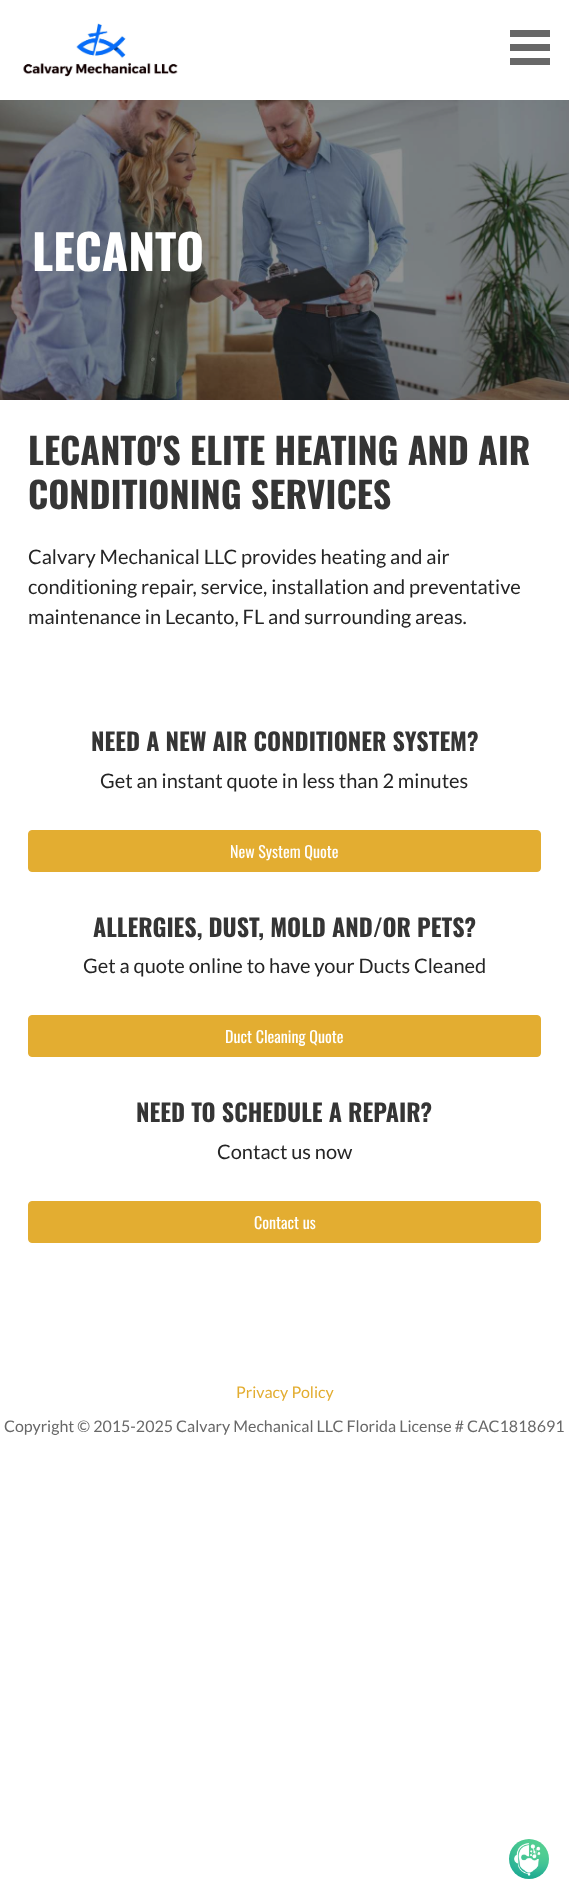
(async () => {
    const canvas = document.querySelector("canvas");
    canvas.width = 569;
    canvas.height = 1899;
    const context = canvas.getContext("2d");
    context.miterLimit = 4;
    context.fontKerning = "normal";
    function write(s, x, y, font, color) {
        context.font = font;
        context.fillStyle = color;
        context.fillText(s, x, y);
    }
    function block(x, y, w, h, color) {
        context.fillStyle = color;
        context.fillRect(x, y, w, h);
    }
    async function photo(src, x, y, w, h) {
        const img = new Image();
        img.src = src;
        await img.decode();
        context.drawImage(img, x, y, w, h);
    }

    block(0, 0, 569, 1899, "rgb(255, 255, 255)");
    await photo("media/1.png", 23, 23, 155, 54);
    block(510, 30, 40, 7, "rgb(104, 104, 104)");
    block(510, 44, 40, 7, "rgb(104, 104, 104)");
    block(510, 58, 40, 7, "rgb(104, 104, 104)");
    await photo("media/2.png", 0, 100, 569, 300);
    write("LECANTO", 32, 271, "bold 48px Oswald", "rgb(255, 255, 255)");
    write("LECANTO'S ELITE HEATING AND AIR", 28, 465, "bold 36px Oswald", "rgb(53, 53, 53)");
    write("CONDITIONING SERVICES", 28, 509, "bold 36px Oswald", "rgb(53, 53, 53)");
    write("Calvary Mechanical LLC provides heating and air", 28, 564, "20px Lato", "rgb(37, 37, 37)");
    write("conditioning repair, service, installation and preventative", 28, 594, "20px Lato", "rgb(37, 37, 37)");
    write("maintenance in Lecanto, FL and surrounding areas.", 28, 624, "20px Lato", "rgb(37, 37, 37)");
    write("NEED A NEW AIR CONDITIONER SYSTEM?", 91, 751, "bold 24px Oswald", "rgb(53, 53, 53)");
    write("Get an instant quote in less than 2 minutes", 100, 788, "20px Lato", "rgb(37, 37, 37)");
    context.fillStyle = "rgb(227, 173, 49)";
    context.beginPath();
    context.roundRect(28.5, 830.5, 512, 41, 3.5);
    context.fill();
    context.strokeStyle = "rgb(227, 173, 49)";
    context.stroke();
    write("New System Quote", 230, 858, "16px Oswald", "rgb(255, 255, 255)");
    write("ALLERGIES, DUST, MOLD AND/OR PETS?", 93, 937, "bold 24px Oswald", "rgb(53, 53, 53)");
    write("Get a quote online to have your Ducts Cleaned", 83, 973, "20px Lato", "rgb(37, 37, 37)");
    context.fillStyle = "rgb(227, 173, 49)";
    context.beginPath();
    context.roundRect(28.5, 1015.5, 512, 41, 3.5);
    context.fill();
    context.stroke();
    write("Duct Cleaning Quote", 225, 1043, "16px Oswald", "rgb(255, 255, 255)");
    write("NEED TO SCHEDULE A REPAIR?", 136, 1122, "bold 24px Oswald", "rgb(53, 53, 53)");
    write("Contact us now", 217, 1159, "20px Lato", "rgb(37, 37, 37)");
    context.fillStyle = "rgb(227, 173, 49)";
    context.beginPath();
    context.roundRect(28.5, 1201.5, 512, 41, 3.5);
    context.fill();
    context.stroke();
    write("Contact us", 254, 1229, "16px Oswald", "rgb(255, 255, 255)");
    write("Privacy Policy", 236, 1398, "16px Lato", "rgb(227, 173, 49)");
    write("Copyright © 2015-2025 Calvary Mechanical LLC Florida License # CAC1818691", 4, 1432, "16px Lato", "rgb(104, 104, 104)");
    await photo("media/3.png", 509, 1839, 40, 40);
})();
